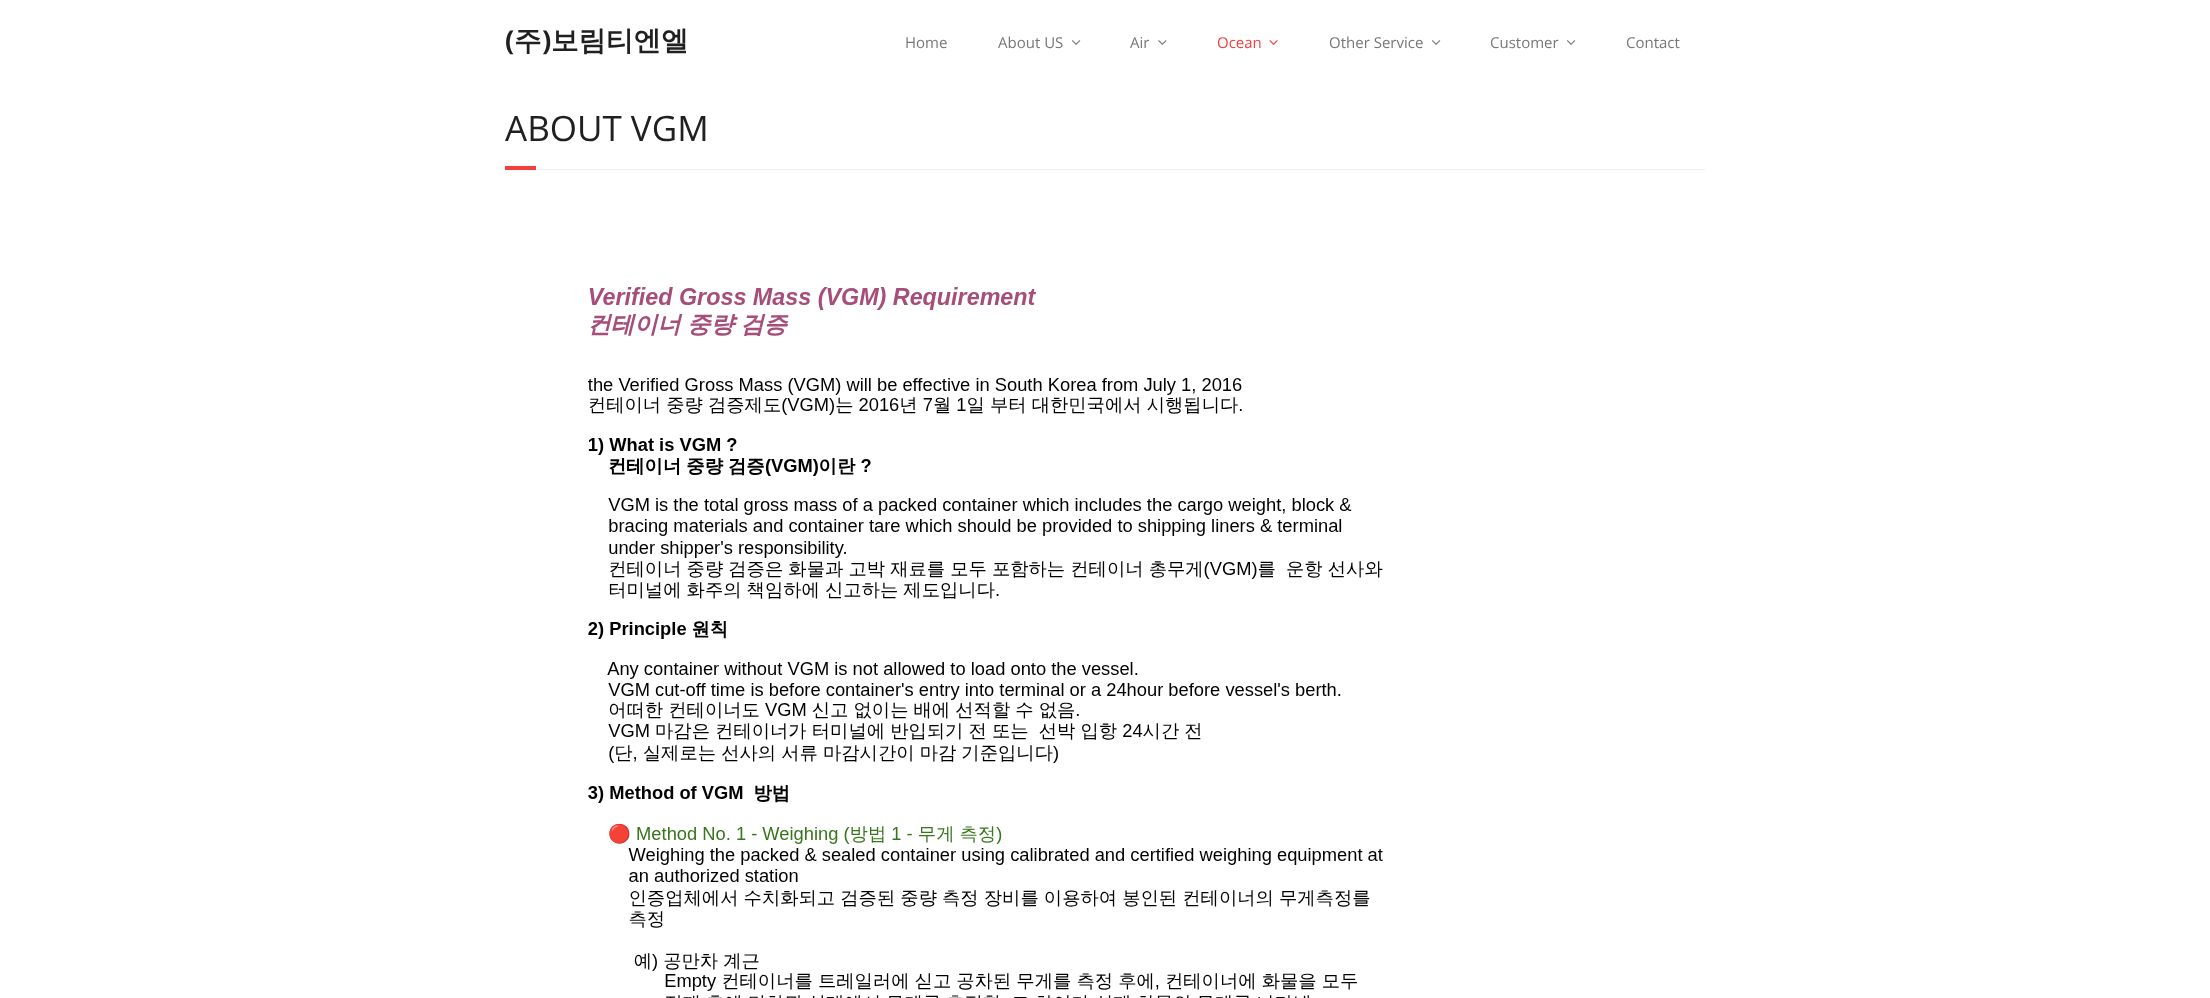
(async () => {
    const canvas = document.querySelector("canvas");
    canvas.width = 2210;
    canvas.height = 998;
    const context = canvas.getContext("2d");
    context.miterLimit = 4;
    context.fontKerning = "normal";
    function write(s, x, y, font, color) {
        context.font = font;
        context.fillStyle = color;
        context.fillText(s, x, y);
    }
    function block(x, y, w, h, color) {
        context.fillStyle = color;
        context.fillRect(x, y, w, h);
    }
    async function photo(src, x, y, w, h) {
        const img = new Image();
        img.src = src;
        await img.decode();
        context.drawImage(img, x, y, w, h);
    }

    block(0, 0, 2210, 998, "rgb(255, 255, 255)");
    write("(", 505, 50, "bold 27.5px Open Sans", "rgb(32, 32, 32)");
    write("주", 514, 50, "bold 27.5px WenQuanYi Zen Hei", "rgb(32, 32, 32)");
    write(")", 542, 50, "bold 27.5px Open Sans", "rgb(32, 32, 32)");
    write("보림티엔엘", 551, 50, "bold 27.5px WenQuanYi Zen Hei", "rgb(32, 32, 32)");
    write("Home", 905, 48, "15px Open Sans", "rgb(119, 119, 119)");
    write("About US", 998, 48, "15px Open Sans", "rgb(119, 119, 119)");
    await photo("media/1.png", 1072, 40, 9, 5);
    write("Air", 1130, 48, "15px Open Sans", "rgb(119, 119, 119)");
    await photo("media/2.png", 1158, 40, 9, 5);
    write("Ocean", 1217, 48, "15px Open Sans", "rgb(243, 63, 63)");
    await photo("media/3.png", 1269, 40, 9, 5);
    write("Other Service", 1329, 48, "15px Open Sans", "rgb(119, 119, 119)");
    await photo("media/1.png", 1432, 40, 9, 5);
    write("Customer", 1490, 48, "15px Open Sans", "rgb(119, 119, 119)");
    await photo("media/1.png", 1567, 40, 9, 5);
    write("Contact", 1626, 48, "15px Open Sans", "rgb(119, 119, 119)");
    write("ABOUT VGM", 505, 141, "35px Open Sans", "rgb(32, 32, 32)");
    block(505, 166, 31, 4, "rgb(243, 63, 63)");
    block(536, 169, 1169, 1, "rgb(238, 238, 238)");
    await photo("media/4.png", 588, 287, 795, 711);
})();
